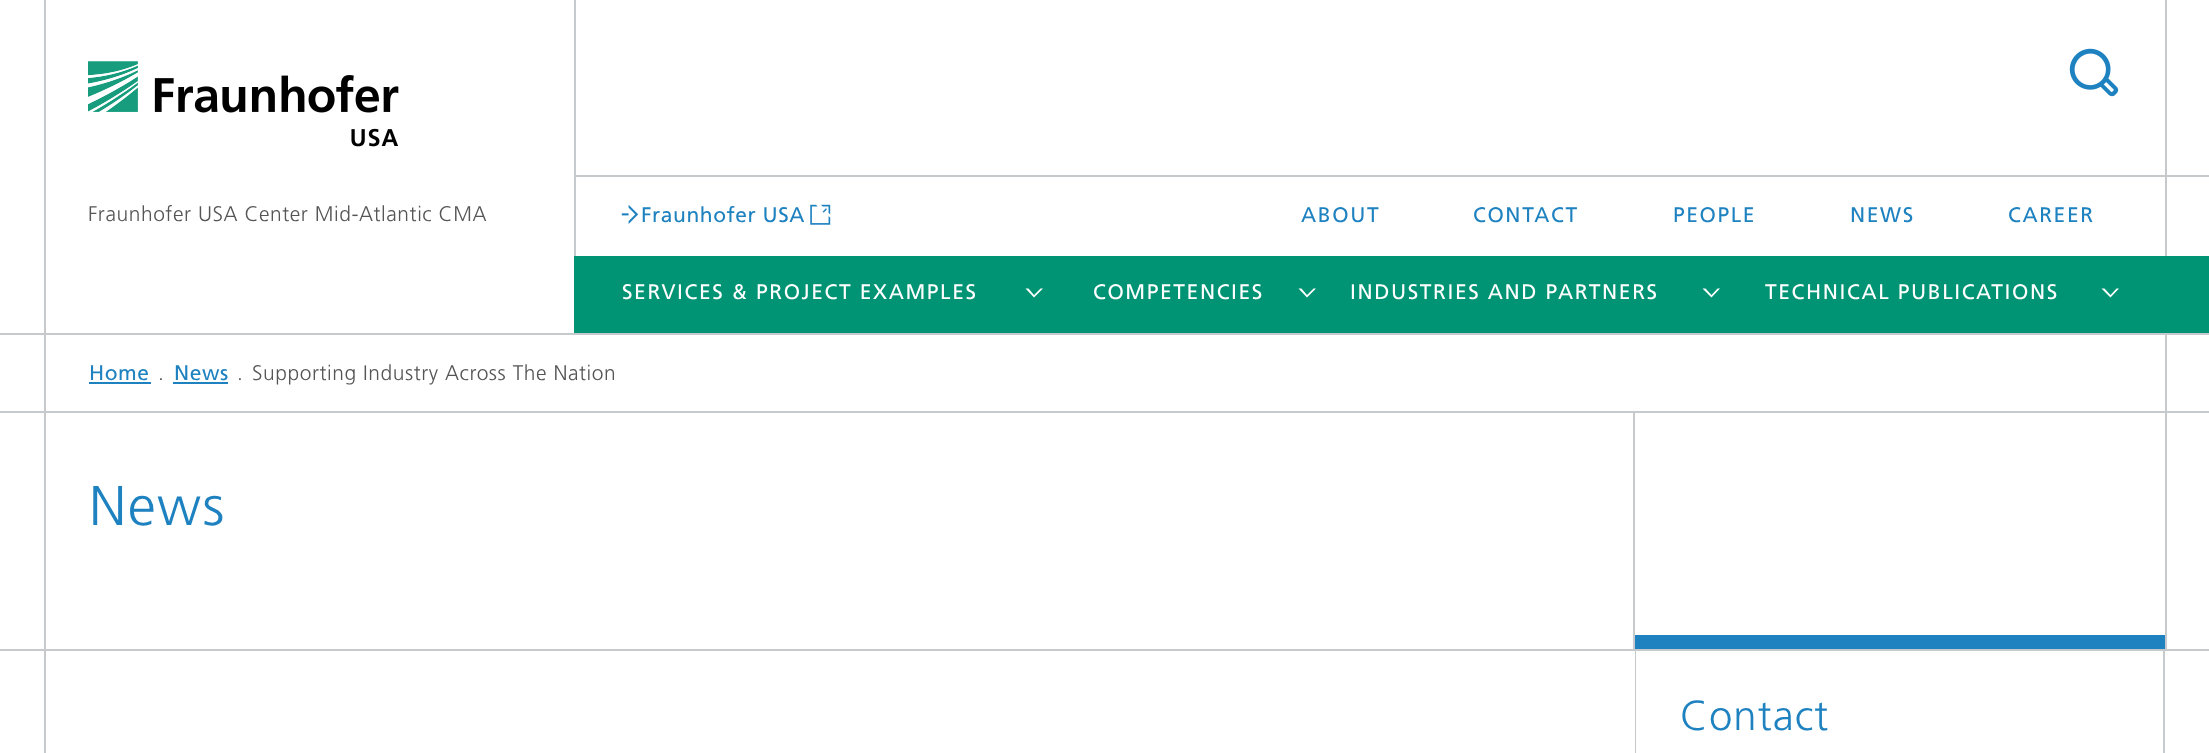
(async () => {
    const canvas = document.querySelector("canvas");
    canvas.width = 2209;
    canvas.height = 753;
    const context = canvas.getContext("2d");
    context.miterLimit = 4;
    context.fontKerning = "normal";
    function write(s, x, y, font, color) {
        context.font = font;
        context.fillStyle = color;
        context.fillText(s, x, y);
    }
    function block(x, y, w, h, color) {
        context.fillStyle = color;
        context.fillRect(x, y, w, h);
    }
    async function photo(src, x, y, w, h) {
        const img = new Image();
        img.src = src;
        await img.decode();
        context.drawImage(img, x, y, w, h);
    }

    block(0, 0, 2209, 753, "rgb(255, 255, 255)");
    block(44, 0, 2, 411, "rgb(199, 202, 204)");
    block(0, 649, 1636, 2, "rgb(199, 202, 204)");
    block(1635, 649, 1, 104, "rgb(199, 202, 204)");
    await photo("media/1.png", 88, 61, 311, 86);
    await photo("media/2.png", 2069, 48, 50, 49);
    block(574, 175, 1635, 2, "rgb(199, 202, 204)");
    context.letterSpacing = "0.55px";
    write("Fraunhofer USA Center Mid-Atlantic CMA", 88, 221, "300 21px Frutiger", "rgb(85, 85, 85)");
    block(2165, 0, 2, 256, "rgb(199, 202, 204)");
    block(574, 0, 2, 256, "rgb(199, 202, 204)");
    await photo("media/3.png", 621, 204, 18, 20);
    write("Fraunhofer USA", 641, 222, "21px Frutiger", "rgb(31, 130, 192)");
    await photo("media/4.png", 810, 204, 21, 21);
    context.letterSpacing = "1.6px";
    write("ABOUT", 1301, 222, "21px Frutiger", "rgb(31, 130, 192)");
    write("CONTACT", 1473, 222, "21px Frutiger", "rgb(31, 130, 192)");
    write("PEOPLE", 1673, 222, "21px Frutiger", "rgb(31, 130, 192)");
    write("NEWS", 1850, 222, "21px Frutiger", "rgb(31, 130, 192)");
    write("CAREER", 2008, 222, "21px Frutiger", "rgb(31, 130, 192)");
    block(574, 256, 1635, 77, "rgb(0, 147, 116)");
    write("SERVICES & PROJECT EXAMPLES", 622, 299, "21px Frutiger", "rgb(255, 255, 255)");
    context.beginPath();
    context.moveTo(1040.5, 288.5);
    context.lineTo(1034, 295);
    context.lineTo(1028.5, 288.5);
    context.lineTo(1025.5, 288.5);
    context.lineTo(1034, 297.5);
    context.lineTo(1043, 288.5);
    context.closePath();
    context.fill();
    write("COMPETENCIES", 1093, 299, "21px Frutiger", "rgb(255, 255, 255)");
    context.beginPath();
    context.moveTo(1313.5, 288.5);
    context.lineTo(1307, 295);
    context.lineTo(1301.5, 288.5);
    context.lineTo(1298.5, 288.5);
    context.lineTo(1307, 297.5);
    context.lineTo(1316, 288.5);
    context.closePath();
    context.fill();
    write("INDUSTRIES AND PARTNERS", 1350, 299, "21px Frutiger", "rgb(255, 255, 255)");
    context.beginPath();
    context.moveTo(1717.5, 288.5);
    context.lineTo(1711.5, 295);
    context.lineTo(1705.5, 288.5);
    context.lineTo(1702.5, 288.5);
    context.lineTo(1711.5, 297.5);
    context.lineTo(1720, 288.5);
    context.closePath();
    context.fill();
    write("TECHNICAL PUBLICATIONS", 1765, 299, "21px Frutiger", "rgb(255, 255, 255)");
    context.beginPath();
    context.moveTo(2116.5, 288.5);
    context.lineTo(2110.5, 295);
    context.lineTo(2104.5, 288.5);
    context.lineTo(2101.5, 288.5);
    context.lineTo(2110.5, 297.5);
    context.lineTo(2119, 288.5);
    context.closePath();
    context.fill();
    block(0, 333, 46, 2, "rgb(199, 202, 204)");
    block(44, 333, 2165, 2, "rgb(199, 202, 204)");
    block(0, 411, 46, 2, "rgb(199, 202, 204)");
    block(44, 411, 2165, 2, "rgb(199, 202, 204)");
    block(2165, 333, 2, 316, "rgb(199, 202, 204)");
    context.letterSpacing = "0.55px";
    write("Home", 89, 380, "21px Frutiger", "rgb(31, 130, 192)");
    block(89, 382, 62, 2, "rgb(31, 130, 192)");
    write(".", 158, 380, "300 21px Frutiger", "rgb(85, 85, 85)");
    write("News", 174, 380, "21px Frutiger", "rgb(31, 130, 192)");
    block(173, 382, 55, 2, "rgb(31, 130, 192)");
    write(".", 237, 380, "300 21px Frutiger", "rgb(85, 85, 85)");
    write("Supporting Industry Across The Nation", 252, 380, "300 21px Frutiger", "rgb(85, 85, 85)");
    block(44, 411, 2, 342, "rgb(199, 202, 204)");
    block(1633, 413, 2, 236, "rgb(199, 202, 204)");
    context.letterSpacing = "1.5px";
    write("News", 89, 525, "300 56px Frutiger", "rgb(31, 130, 192)");
    block(1635, 635, 530, 14, "rgb(31, 130, 192)");
    block(1636, 649, 573, 2, "rgb(199, 202, 204)");
    block(2163, 649, 2, 104, "rgb(199, 202, 204)");
    context.letterSpacing = "1px";
    write("Contact", 1680, 730, "300 42px Frutiger", "rgb(31, 130, 192)");
})();
